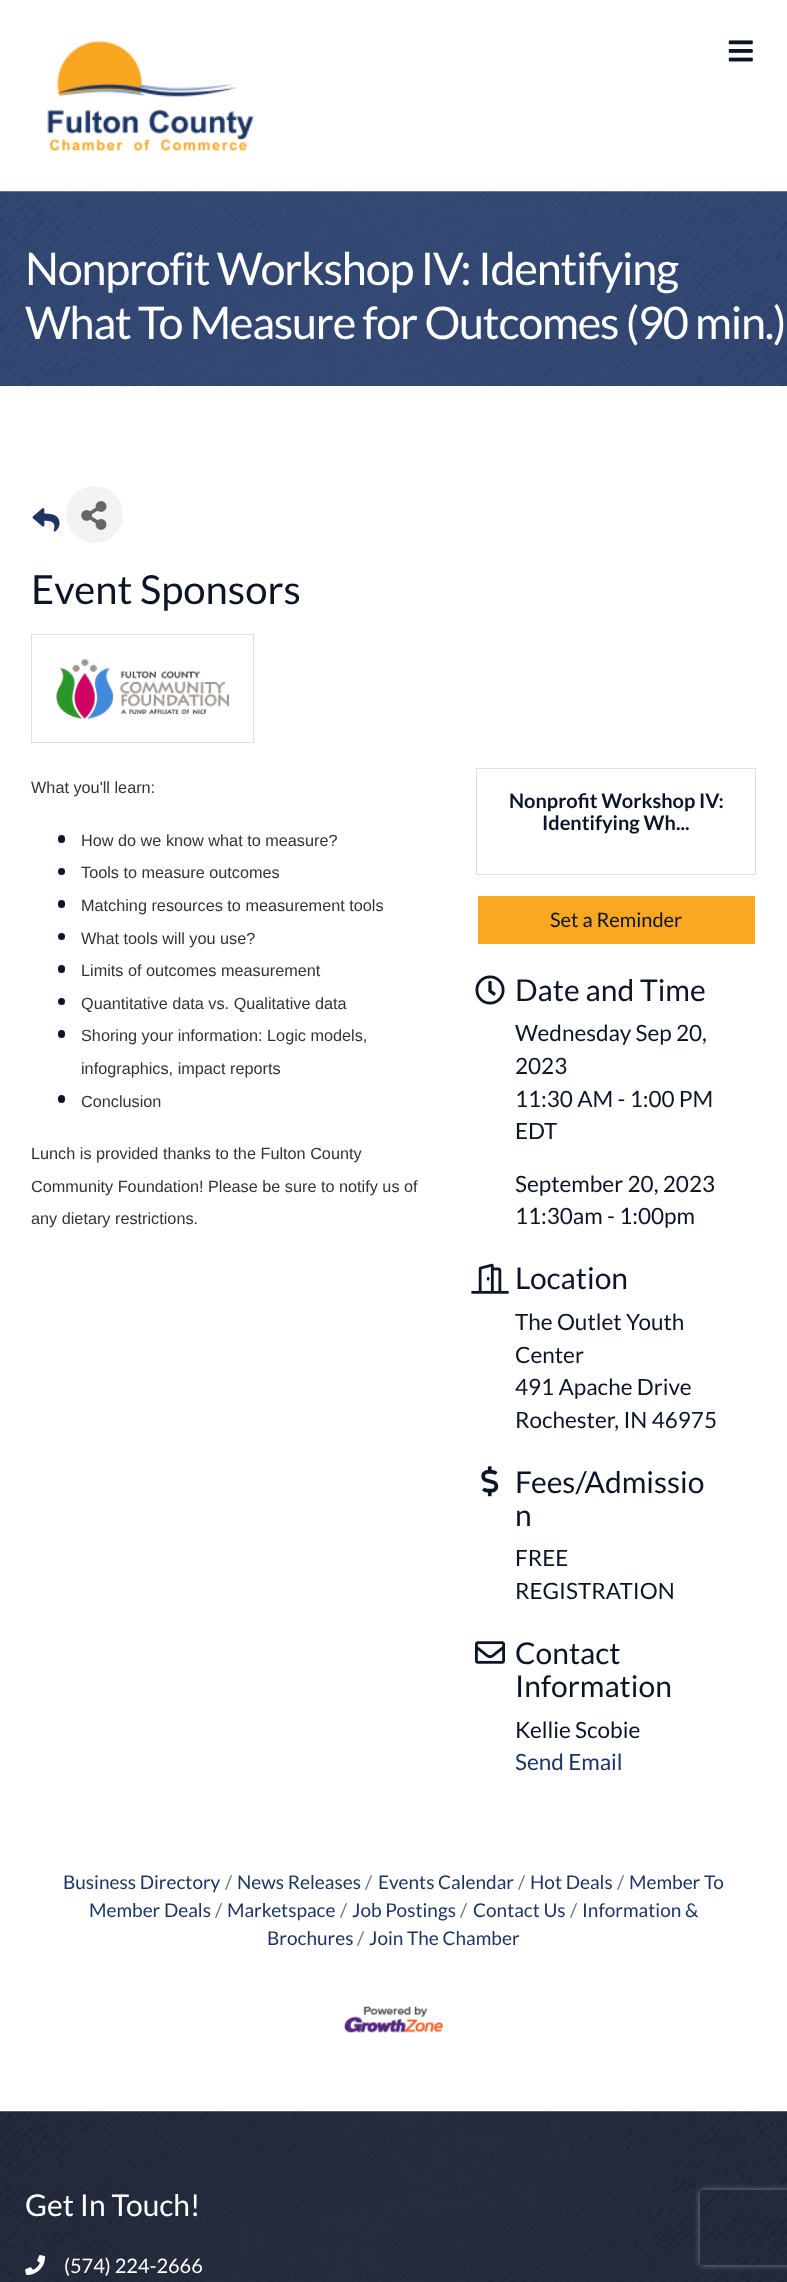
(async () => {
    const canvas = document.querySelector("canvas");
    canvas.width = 787;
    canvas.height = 2282;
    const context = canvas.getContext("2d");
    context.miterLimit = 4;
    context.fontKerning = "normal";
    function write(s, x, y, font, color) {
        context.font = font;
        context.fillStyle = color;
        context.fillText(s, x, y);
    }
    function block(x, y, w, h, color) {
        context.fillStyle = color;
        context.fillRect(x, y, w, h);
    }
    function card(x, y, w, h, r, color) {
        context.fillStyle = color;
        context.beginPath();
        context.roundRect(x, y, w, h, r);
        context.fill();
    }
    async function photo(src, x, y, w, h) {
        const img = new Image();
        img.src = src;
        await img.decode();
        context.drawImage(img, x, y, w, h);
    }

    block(0, 0, 787, 2282, "rgb(255, 255, 255)");
    await photo("media/1.png", 47, 41, 207, 111);
    await photo("media/2.png", 728, 40, 25, 22);
    await photo("media/3.png", 0, 191, 787, 196);
    context.letterSpacing = "-1.25px";
    write("Nonprofit Workshop IV: Identifying", 25, 285, "45px Lato", "rgb(255, 255, 255)");
    write("What To Measure for Outcomes (90 min.)", 25, 339, "45px Lato", "rgb(255, 255, 255)");
    await photo("media/4.png", 32, 508, 28, 24);
    context.fillStyle = "rgb(243, 243, 243)";
    context.beginPath();
    context.arc(94.5, 514.5, 28.5, 0, Math.PI * 2);
    context.fill();
    await photo("media/5.png", 81, 501, 26, 29);
    context.letterSpacing = "0px";
    write("Event Sponsors", 31, 604, "40px Lato", "rgb(12, 21, 40)");
    context.strokeStyle = "rgb(223, 223, 223)";
    context.strokeRect(31.5, 634.5, 222, 108);
    await photo("media/6.png", 56, 658, 173, 61);
    write("What you'll learn:", 31, 793, "16.25px Liberation Sans", "rgb(51, 51, 51)");
    card(58, 835, 7, 8, 3.5, "rgb(12, 21, 40)");
    write("How do we know what to measure?", 81, 846, "16.25px Liberation Sans", "rgb(51, 51, 51)");
    context.fillStyle = "rgb(12, 21, 40)";
    context.beginPath();
    context.arc(61.5, 871.5, 3.5, 0, Math.PI * 2);
    context.fill();
    write("Tools to measure outcomes", 81, 878, "16.25px Liberation Sans", "rgb(51, 51, 51)");
    card(58, 900, 7, 8, 3.5, "rgb(12, 21, 40)");
    write("Matching resources to measurement tools", 81, 911, "16.25px Liberation Sans", "rgb(51, 51, 51)");
    context.fillStyle = "rgb(12, 21, 40)";
    context.beginPath();
    context.arc(61.5, 936.5, 3.5, 0, Math.PI * 2);
    context.fill();
    write("What tools will you use?", 81, 944, "16.25px Liberation Sans", "rgb(51, 51, 51)");
    card(58, 965, 7, 8, 3.5, "rgb(12, 21, 40)");
    write("Limits of outcomes measurement", 81, 976, "16.25px Liberation Sans", "rgb(51, 51, 51)");
    context.fillStyle = "rgb(12, 21, 40)";
    context.beginPath();
    context.arc(61.5, 1001.5, 3.5, 0, Math.PI * 2);
    context.fill();
    write("Quantitative data vs. Qualitative data", 81, 1009, "16.25px Liberation Sans", "rgb(51, 51, 51)");
    card(58, 1030, 7, 8, 3.5, "rgb(12, 21, 40)");
    write("Shoring your information: Logic models,", 81, 1041, "16.25px Liberation Sans", "rgb(51, 51, 51)");
    write("infographics, impact reports", 81, 1074, "16.25px Liberation Sans", "rgb(51, 51, 51)");
    card(58, 1095, 7, 8, 3.5, "rgb(12, 21, 40)");
    write("Conclusion", 81, 1107, "16.25px Liberation Sans", "rgb(51, 51, 51)");
    write("Lunch is provided thanks to the Fulton County", 31, 1159, "16.25px Liberation Sans", "rgb(51, 51, 51)");
    write("Community Foundation! Please be sure to notify us of", 31, 1192, "16.25px Liberation Sans", "rgb(51, 51, 51)");
    write("any dietary restrictions.", 31, 1224, "16.25px Liberation Sans", "rgb(51, 51, 51)");
    context.strokeRect(476.5, 768.5, 279, 106);
    write("Nonprofit Workshop IV:", 509, 808, "bold 20px Lato", "rgb(12, 21, 40)");
    write("Identifying Wh...", 542, 830, "bold 20px Lato", "rgb(12, 21, 40)");
    block(478, 896, 277, 48, "rgb(250, 167, 34)");
    write("Set a Reminder", 550, 927, "20px Lato", "rgb(12, 21, 40)");
    await photo("media/7.png", 475, 975, 30, 30);
    write("Date and Time", 515, 1001, "30px Lato", "rgb(12, 21, 40)");
    write("Wednesday Sep 20,", 515, 1041, "22.5px Lato", "rgb(12, 21, 40)");
    write("2023", 515, 1074, "22.5px Lato", "rgb(12, 21, 40)");
    write("11:30 AM - 1:00 PM", 515, 1107, "22.5px Lato", "rgb(12, 21, 40)");
    write("EDT", 515, 1139, "22.5px Lato", "rgb(12, 21, 40)");
    write("September 20, 2023", 515, 1192, "22.5px Lato", "rgb(12, 21, 40)");
    write("11:30am - 1:00pm", 515, 1224, "22.5px Lato", "rgb(12, 21, 40)");
    await photo("media/8.png", 471, 1263, 38, 31);
    write("Location", 515, 1289, "30px Lato", "rgb(12, 21, 40)");
    write("The Outlet Youth", 515, 1330, "22.5px Lato", "rgb(12, 21, 40)");
    write("Center", 515, 1363, "22.5px Lato", "rgb(12, 21, 40)");
    write("491 Apache Drive", 515, 1395, "22.5px Lato", "rgb(12, 21, 40)");
    write("Rochester, IN 46975", 515, 1428, "22.5px Lato", "rgb(12, 21, 40)");
    await photo("media/9.png", 481, 1466, 18, 31);
    write("Fees/Admissio", 515, 1493, "30px Lato", "rgb(12, 21, 40)");
    write("n", 515, 1526, "30px Lato", "rgb(12, 21, 40)");
    write("FREE", 515, 1566, "22.5px Lato", "rgb(12, 21, 40)");
    write("REGISTRATION", 515, 1599, "22.5px Lato", "rgb(12, 21, 40)");
    await photo("media/10.png", 475, 1641, 30, 23);
    write("Contact", 515, 1664, "30px Lato", "rgb(12, 21, 40)");
    write("Information", 515, 1697, "30px Lato", "rgb(12, 21, 40)");
    write("Kellie Scobie", 515, 1738, "22.5px Lato", "rgb(12, 21, 40)");
    write("Send Email", 515, 1770, "22.5px Lato", "rgb(29, 53, 101)");
    write("/", 617, 1889, "19px Lato", "rgb(108, 117, 125)");
    write("Member To", 629, 1889, "19px Lato", "rgb(29, 53, 101)");
    write("Member Deals", 89, 1917, "19px Lato", "rgb(29, 53, 101)");
    write("Business Directory", 63, 1889, "19px Lato", "rgb(29, 53, 101)");
    write("/", 225, 1889, "19px Lato", "rgb(108, 117, 125)");
    write("News Releases", 237, 1889, "19px Lato", "rgb(29, 53, 101)");
    write("/", 365, 1889, "19px Lato", "rgb(108, 117, 125)");
    write("Events Calendar", 378, 1889, "19px Lato", "rgb(29, 53, 101)");
    write("/", 518, 1889, "19px Lato", "rgb(108, 117, 125)");
    write("Hot Deals", 530, 1889, "19px Lato", "rgb(29, 53, 101)");
    write("/", 215, 1917, "19px Lato", "rgb(108, 117, 125)");
    write("Marketspace", 227, 1917, "19px Lato", "rgb(29, 53, 101)");
    write("/", 570, 1917, "19px Lato", "rgb(108, 117, 125)");
    write("Information &", 582, 1917, "19px Lato", "rgb(29, 53, 101)");
    write("Brochures", 267, 1945, "19px Lato", "rgb(29, 53, 101)");
    write("/", 340, 1917, "19px Lato", "rgb(108, 117, 125)");
    write("Job Postings", 352, 1917, "19px Lato", "rgb(29, 53, 101)");
    write("/", 460, 1917, "19px Lato", "rgb(108, 117, 125)");
    write("Contact Us", 473, 1917, "19px Lato", "rgb(29, 53, 101)");
    write("/", 357, 1945, "19px Lato", "rgb(108, 117, 125)");
    write("Join The Chamber", 369, 1945, "19px Lato", "rgb(29, 53, 101)");
    await photo("media/11.png", 344, 2006, 99, 27);
    await photo("media/12.png", 0, 2111, 787, 171);
    write("Get In Touch!", 25, 2216, "30px Lato", "rgb(255, 255, 255)");
    await photo("media/13.png", 25, 2255, 20, 20);
    write("(574) 224-2666", 64, 2273, "20px Lato", "rgb(255, 255, 255)");
    context.save();
    context.beginPath();
    context.moveTo(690, 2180);
    context.lineTo(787, 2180);
    context.lineTo(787, 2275);
    context.lineTo(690, 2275);
    context.closePath();
    context.moveTo(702.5, 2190);
    context.lineTo(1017.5, 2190);
    context.bezierCurveTo(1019, 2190, 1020, 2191, 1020, 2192.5);
    context.lineTo(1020, 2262.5);
    context.bezierCurveTo(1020, 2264, 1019, 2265, 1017.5, 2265);
    context.lineTo(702.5, 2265);
    context.bezierCurveTo(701, 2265, 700, 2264, 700, 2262.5);
    context.lineTo(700, 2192.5);
    context.bezierCurveTo(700, 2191, 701, 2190, 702.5, 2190);
    context.closePath();
    context.clip("evenodd");
    context.fillStyle = "rgb(128, 128, 128)";
    context.filter = "blur(3px)";
    context.beginPath();
    context.roundRect(700, 2190, 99, 75, 2.5);
    context.fill();
    context.filter = "none";
    context.restore();
})();
